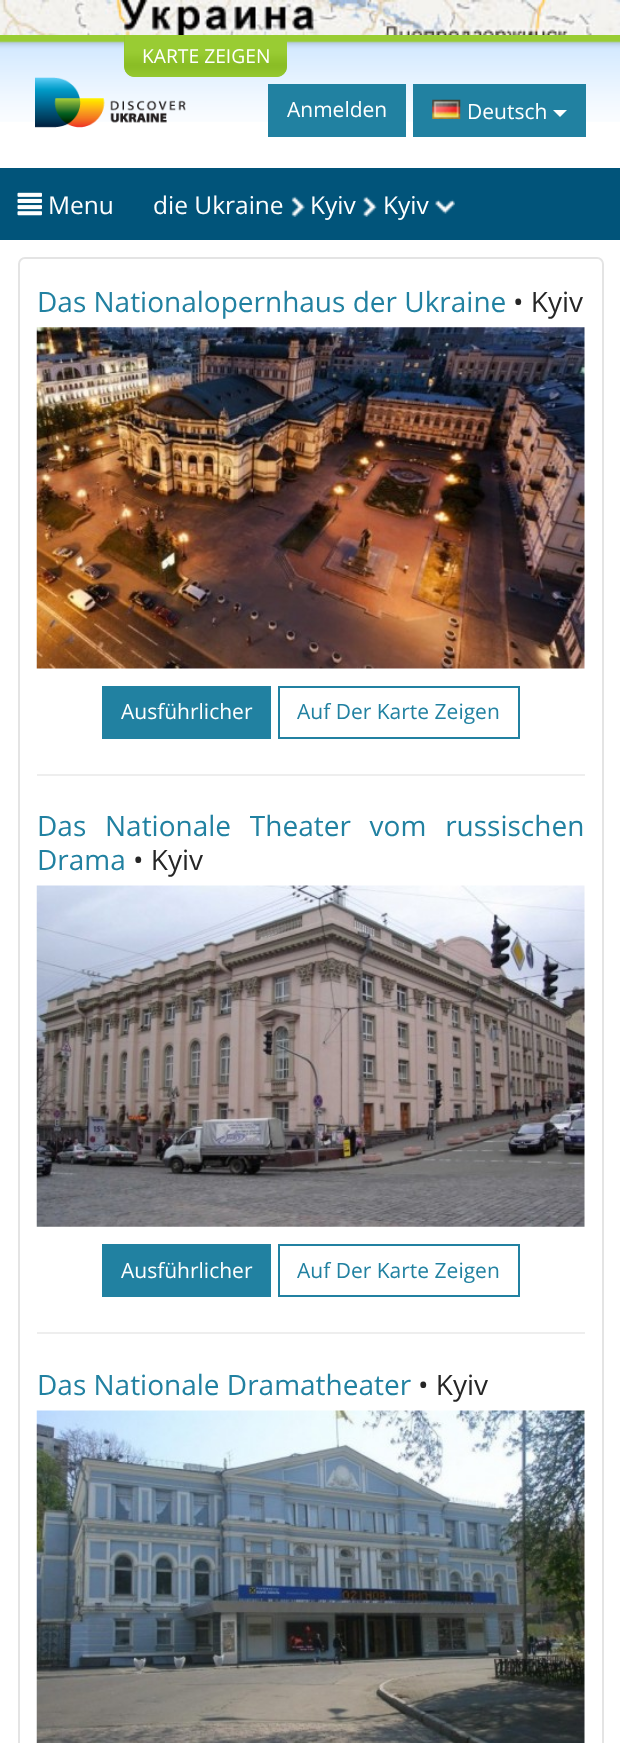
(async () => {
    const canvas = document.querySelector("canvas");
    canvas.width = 620;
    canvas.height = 1743;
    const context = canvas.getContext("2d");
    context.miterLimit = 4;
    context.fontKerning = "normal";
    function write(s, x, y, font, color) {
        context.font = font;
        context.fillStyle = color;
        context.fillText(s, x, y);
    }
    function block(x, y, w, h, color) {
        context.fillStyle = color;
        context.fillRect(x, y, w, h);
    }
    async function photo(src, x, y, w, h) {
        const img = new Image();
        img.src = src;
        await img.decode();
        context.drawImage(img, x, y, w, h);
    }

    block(0, 0, 620, 1743, "rgb(255, 255, 255)");
    await photo("media/1.png", 0, 0, 620, 35);
    await photo("media/2.png", 0, 35, 620, 87);
    context.fillStyle = "rgb(143, 194, 41)";
    context.beginPath();
    context.roundRect(124, 35, 163, 42, [0, 0, 11, 11]);
    context.fill();
    await photo("media/3.png", 124, 35, 163, 42);
    write("KARTE ZEIGEN", 142, 63, "19.25px Open Sans", "rgb(255, 255, 255)");
    await photo("media/4.png", 35, 77, 151, 51);
    block(268, 84, 138, 53, "rgb(33, 129, 161)");
    write("Anmelden", 287, 117, "21px Open Sans", "rgb(255, 255, 255)");
    block(413, 84, 173, 53, "rgb(33, 129, 161)");
    await photo("media/5.png", 432, 99, 29, 20);
    write("Deutsch", 467, 119, "21px Open Sans", "rgb(255, 255, 255)");
    context.beginPath();
    context.moveTo(553, 110);
    context.lineTo(567, 110);
    context.lineTo(560, 117);
    context.closePath();
    context.fill();
    block(0, 168, 620, 72, "rgb(1, 84, 122)");
    await photo("media/6.png", 17, 192, 25, 24);
    write("Menu", 48, 214, "24.5px Open Sans", "rgb(255, 255, 255)");
    write("die Ukraine", 153, 214, "24.5px Open Sans", "rgb(255, 255, 255)");
    await photo("media/7.png", 291, 196, 14, 21);
    write("Kyiv", 310, 214, "24.5px Open Sans", "rgb(255, 255, 255)");
    await photo("media/8.png", 362, 196, 15, 21);
    write("Kyiv", 383, 214, "24.5px Open Sans", "rgb(255, 255, 255)");
    await photo("media/9.png", 434, 199, 21, 15);
    context.beginPath();
    context.roundRect(19, 258, 584, 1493, 6);
    context.strokeStyle = "rgb(228, 228, 228)";
    context.lineWidth = 2;
    context.stroke();
    write("Das Nationalopernhaus der Ukraine", 37, 312, "28px Open Sans", "rgb(33, 129, 161)");
    write("• Kyiv", 513, 312, "28px Open Sans", "rgb(38, 38, 38)");
    await photo("media/10.png", 36, 327, 549, 342);
    block(102, 686, 169, 53, "rgb(33, 129, 161)");
    write("Ausführlicher", 121, 719, "21px Open Sans", "rgb(255, 255, 255)");
    context.strokeStyle = "rgb(33, 129, 161)";
    context.strokeRect(279, 687, 240, 51);
    write("Auf Der Karte Zeigen", 297, 719, "21px Open Sans", "rgb(33, 129, 161)");
    block(37, 774, 548, 2, "rgb(238, 238, 238)");
    context.wordSpacing = "11.5px";
    write("Das Nationale Theater vom russischen", 37, 836, "28px Open Sans", "rgb(33, 129, 161)");
    context.wordSpacing = "0px";
    write("Drama", 37, 870, "28px Open Sans", "rgb(33, 129, 161)");
    write("• Kyiv", 133, 870, "28px Open Sans", "rgb(38, 38, 38)");
    await photo("media/11.png", 36, 885, 549, 342);
    block(102, 1244, 169, 53, "rgb(33, 129, 161)");
    write("Ausführlicher", 121, 1278, "21px Open Sans", "rgb(255, 255, 255)");
    context.strokeRect(279, 1245, 240, 51);
    write("Auf Der Karte Zeigen", 297, 1278, "21px Open Sans", "rgb(33, 129, 161)");
    block(37, 1332, 548, 2, "rgb(238, 238, 238)");
    write("Das Nationale Dramatheater", 37, 1395, "28px Open Sans", "rgb(33, 129, 161)");
    write("• Kyiv", 418, 1395, "28px Open Sans", "rgb(38, 38, 38)");
    await photo("media/12.png", 36, 1410, 549, 333);
})();
